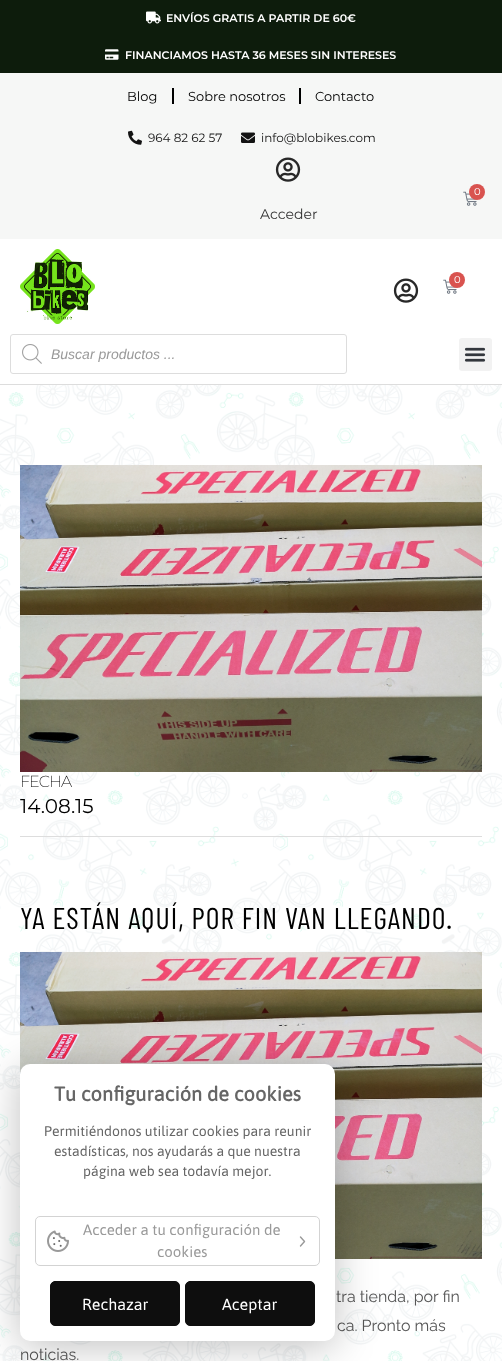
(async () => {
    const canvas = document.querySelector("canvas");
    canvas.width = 502;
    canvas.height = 1361;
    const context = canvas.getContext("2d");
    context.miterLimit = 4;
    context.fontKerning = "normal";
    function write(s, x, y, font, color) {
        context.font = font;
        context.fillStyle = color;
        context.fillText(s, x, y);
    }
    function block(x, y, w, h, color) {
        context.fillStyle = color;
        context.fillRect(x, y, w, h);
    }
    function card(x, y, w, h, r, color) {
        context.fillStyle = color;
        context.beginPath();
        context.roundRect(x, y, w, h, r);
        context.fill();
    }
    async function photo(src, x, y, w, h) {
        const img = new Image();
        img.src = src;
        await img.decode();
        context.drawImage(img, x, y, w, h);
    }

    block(0, 0, 502, 1361, "rgb(255, 255, 255)");
    block(0, 0, 502, 73, "rgb(13, 28, 12)");
    await photo("media/1.png", 146, 11, 15, 13);
    write("ENVÍOS GRATIS A PARTIR DE 60€", 166, 22, "600 11px Montserrat", "rgb(255, 255, 255)");
    await photo("media/2.png", 105, 49, 14, 11);
    write("FINANCIAMOS HASTA 36 MESES SIN INTERESES", 125, 59, "600 11px Montserrat", "rgb(255, 255, 255)");
    block(0, 73, 502, 166, "rgb(246, 247, 246)");
    write("Blog", 127, 101, "13px Montserrat", "rgb(0, 0, 0)");
    block(172, 88, 2, 16, "rgb(0, 0, 0)");
    write("Sobre nosotros", 188, 101, "13px Montserrat", "rgb(0, 0, 0)");
    block(299, 88, 2, 16, "rgb(0, 0, 0)");
    write("Contacto", 315, 101, "13px Montserrat", "rgb(0, 0, 0)");
    await photo("media/3.png", 128, 130, 14, 15);
    write("964 82 62 57", 148, 142, "12px Montserrat", "rgb(19, 19, 19)");
    await photo("media/4.png", 241, 132, 14, 11);
    write("info@blobikes.com", 261, 142, "12px Montserrat", "rgb(19, 19, 19)");
    await photo("media/5.png", 463, 191, 14, 15);
    context.fillStyle = "rgb(217, 83, 79)";
    context.beginPath();
    context.arc(477, 192, 8, 0, Math.PI * 2);
    context.fill();
    write("0", 474, 195, "10px Montserrat", "rgb(255, 255, 255)");
    await photo("media/6.png", 275, 157, 26, 25);
    write("Acceder", 260, 219, "14px Montserrat", "rgb(51, 51, 51)");
    block(0, 384, 502, 1, "rgb(221, 221, 221)");
    await photo("media/7.png", 20, 249, 75, 75);
    await photo("media/8.png", 393, 278, 26, 25);
    await photo("media/9.png", 443, 279, 14, 15);
    context.fillStyle = "rgb(217, 83, 79)";
    context.beginPath();
    context.arc(457, 280, 8, 0, Math.PI * 2);
    context.fill();
    write("0", 454, 283, "10px Montserrat", "rgb(255, 255, 255)");
    context.beginPath();
    context.roundRect(10.5, 334.5, 336, 39, 2.5);
    context.strokeStyle = "rgb(221, 221, 221)";
    context.stroke();
    await photo("media/10.png", 22, 344, 20, 20);
    write("Buscar productos ...", 51, 359, "italic 14px Liberation Sans", "rgb(153, 153, 153)");
    card(459, 338, 33, 33, 3, "rgb(242, 242, 242)");
    await photo("media/11.png", 464, 347, 22, 15);
    await photo("media/12.png", 0, 385, 502, 976);
    await photo("media/13.png", 20, 465, 462, 307);
    context.letterSpacing = "-1px";
    write("FECHA", 20, 787, "200 16px Montserrat", "rgb(0, 0, 0)");
    context.letterSpacing = "0px";
    write("14.08.15", 20, 813, "20px Montserrat", "rgb(0, 0, 0)");
    block(20, 836, 462, 1, "rgb(221, 221, 221)");
    context.letterSpacing = "1px";
    write("YA ESTÁN AQUÍ, POR FIN VAN LLEGANDO.", 20, 929, "30px Barlow Condensed", "rgb(0, 0, 0)");
    await photo("media/13.png", 20, 952, 462, 307);
    context.letterSpacing = "0px";
    write("tra tienda, por fin", 336, 1302, "16px Raleway", "rgb(85, 85, 85)");
    write("ca. Pronto más", 337, 1331, "16px Raleway", "rgb(85, 85, 85)");
    write("noticias.", 20, 1360, "16px Raleway", "rgb(85, 85, 85)");
    context.fillStyle = "rgba(0, 0, 0, 0.25)";
    context.filter = "blur(20px)";
    context.beginPath();
    context.roundRect(20, 1069, 315, 277, 10);
    context.fill();
    context.filter = "none";
    card(20, 1064, 315, 277, 10, "rgb(255, 255, 255)");
    write("Tu configuración de cookies", 54, 1101, "bold 20px Asap", "rgb(102, 102, 102)");
    write("Permitiéndonos utilizar cookies para reunir", 44, 1136, "14px Asap", "rgb(102, 102, 102)");
    write("estadísticas, nos ayudarás a que nuestra", 54, 1156, "14px Asap", "rgb(102, 102, 102)");
    write("página web sea todavía mejor.", 83, 1176, "14px Asap", "rgb(102, 102, 102)");
    context.beginPath();
    context.roundRect(35.5, 1216.5, 284, 49, 4.5);
    context.strokeStyle = "rgb(211, 211, 211)";
    context.stroke();
    await photo("media/14.png", 47, 1230, 22, 22);
    write("Acceder a tu configuración de", 83, 1235, "15px Asap", "rgb(153, 153, 153)");
    write("cookies", 157, 1257, "15px Asap", "rgb(153, 153, 153)");
    context.beginPath();
    context.moveTo(300.5, 1246);
    context.lineTo(304.5, 1241.5);
    context.lineTo(300.5, 1237);
    context.strokeStyle = "rgb(153, 153, 153)";
    context.lineWidth = 1.4;
    context.lineCap = "round";
    context.lineJoin = "round";
    context.stroke();
    context.fillStyle = "rgb(14, 14, 14)";
    context.beginPath();
    context.roundRect(50.5, 1281.5, 129, 44, 4.5);
    context.fill();
    context.strokeStyle = "rgb(14, 14, 14)";
    context.lineWidth = 1;
    context.lineJoin = "miter";
    context.stroke();
    write("Rechazar", 82, 1310, "16px Asap", "rgb(255, 255, 255)");
    context.fillStyle = "rgb(14, 14, 14)";
    context.beginPath();
    context.roundRect(185.5, 1281.5, 129, 44, 4.5);
    context.fill();
    context.stroke();
    write("Aceptar", 222, 1310, "16px Asap", "rgb(255, 255, 255)");
})();
